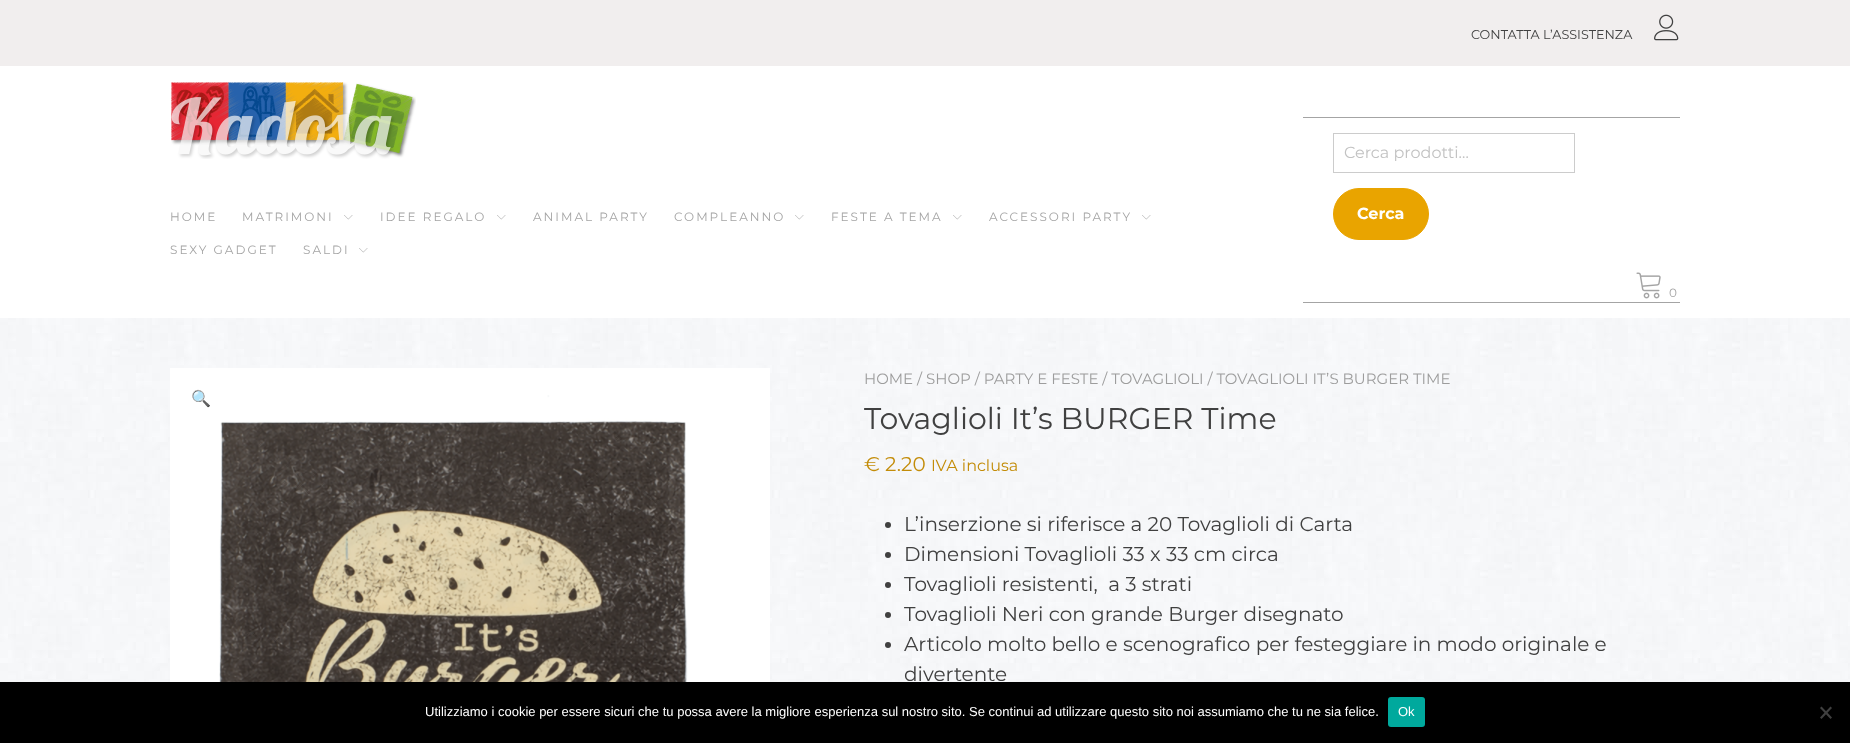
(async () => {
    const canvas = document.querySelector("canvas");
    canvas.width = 1850;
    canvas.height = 743;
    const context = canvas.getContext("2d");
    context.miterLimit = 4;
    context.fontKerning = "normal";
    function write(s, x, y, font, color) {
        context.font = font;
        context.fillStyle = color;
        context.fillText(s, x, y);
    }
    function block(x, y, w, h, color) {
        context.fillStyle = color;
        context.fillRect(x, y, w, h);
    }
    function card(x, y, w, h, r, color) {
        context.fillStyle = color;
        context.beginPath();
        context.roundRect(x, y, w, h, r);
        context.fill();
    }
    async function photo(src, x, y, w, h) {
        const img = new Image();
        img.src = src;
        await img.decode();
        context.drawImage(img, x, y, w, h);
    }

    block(0, 0, 1850, 743, "rgb(255, 255, 255)");
    await photo("media/1.png", 0, 318, 1850, 364);
    block(0, 0, 1850, 66, "rgb(241, 238, 238)");
    write("CONTATTA L’ASSISTENZA", 1471, 39, "12.75px Montserrat", "rgb(64, 64, 64)");
    await photo("media/2.png", 1654, 14, 25, 27);
    await photo("media/3.png", 171, 82, 245, 77);
    context.letterSpacing = "2px";
    write("HOME", 170, 221, "12px Montserrat", "rgb(164, 164, 164)");
    write("MATRIMONI", 242, 221, "12px Montserrat", "rgb(164, 164, 164)");
    await photo("media/4.png", 344, 215, 9, 5);
    write("IDEE REGALO", 380, 221, "12px Montserrat", "rgb(164, 164, 164)");
    await photo("media/4.png", 497, 215, 9, 5);
    write("ANIMAL PARTY", 533, 221, "12px Montserrat", "rgb(164, 164, 164)");
    write("COMPLEANNO", 674, 221, "12px Montserrat", "rgb(164, 164, 164)");
    await photo("media/4.png", 795, 215, 9, 5);
    write("FESTE A TEMA", 831, 221, "12px Montserrat", "rgb(164, 164, 164)");
    await photo("media/4.png", 953, 215, 9, 5);
    write("ACCESSORI PARTY", 989, 221, "12px Montserrat", "rgb(164, 164, 164)");
    await photo("media/4.png", 1142, 215, 9, 5);
    write("SEXY GADGET", 170, 254, "12px Montserrat", "rgb(164, 164, 164)");
    write("SALDI", 303, 254, "12px Montserrat", "rgb(164, 164, 164)");
    await photo("media/4.png", 359, 248, 9, 5);
    block(1303, 117, 377, 1, "rgb(164, 164, 164)");
    block(1303, 302, 377, 1, "rgb(164, 164, 164)");
    context.strokeStyle = "rgb(204, 204, 204)";
    context.strokeRect(1333.5, 133.5, 241, 39);
    context.letterSpacing = "0px";
    write("Cerca prodotti…", 1344, 158, "16px Montserrat", "rgb(194, 194, 194)");
    context.fillStyle = "rgb(233, 164, 0)";
    context.beginPath();
    context.roundRect(1333.5, 188.5, 95, 51, 25.5);
    context.fill();
    context.strokeStyle = "rgb(233, 164, 0)";
    context.stroke();
    write("Cerca", 1357, 219, "bold 16px Montserrat", "rgb(255, 255, 255)");
    await photo("media/5.png", 1636, 272, 25, 27);
    write("0", 1669, 297, "12px Montserrat", "rgb(164, 164, 164)");
    await photo("media/6.png", 170, 368, 600, 314);
    write("🔍", 191, 404, "16px Noto Color Emoji", "rgb(142, 142, 142)");
    write("HOME / SHOP / PARTY E FESTE / TOVAGLIOLI / TOVAGLIOLI IT’S BURGER TIME", 864, 384, "15px Montserrat", "rgb(157, 157, 157)");
    write("Tovaglioli It’s BURGER Time", 864, 429, "30px Montserrat", "rgb(64, 64, 64)");
    write("€ 2.20", 864, 471, "20px Montserrat", "rgb(195, 140, 8)");
    write("IVA inclusa", 931, 471, "16px Montserrat", "rgb(195, 140, 8)");
    context.fillStyle = "rgb(64, 64, 64)";
    context.beginPath();
    context.arc(888, 525, 3, 0, Math.PI * 2);
    context.fill();
    write("L’inserzione si riferisce a 20 Tovaglioli di Carta", 904, 531, "20px Montserrat", "rgb(64, 64, 64)");
    context.beginPath();
    context.arc(888, 555, 3, 0, Math.PI * 2);
    context.fill();
    write("Dimensioni Tovaglioli 33 x 33 cm circa", 904, 561, "20px Montserrat", "rgb(64, 64, 64)");
    context.beginPath();
    context.arc(888, 585, 3, 0, Math.PI * 2);
    context.fill();
    write("Tovaglioli resistenti,  a 3 strati", 904, 591, "20px Montserrat", "rgb(64, 64, 64)");
    context.beginPath();
    context.arc(888, 615, 3, 0, Math.PI * 2);
    context.fill();
    write("Tovaglioli Neri con grande Burger disegnato", 904, 621, "20px Montserrat", "rgb(64, 64, 64)");
    context.beginPath();
    context.arc(888, 645, 3, 0, Math.PI * 2);
    context.fill();
    write("Articolo molto bello e scenografico per festeggiare in modo originale e", 904, 651, "20px Montserrat", "rgb(64, 64, 64)");
    write("divertente", 904, 681, "20px Montserrat", "rgb(64, 64, 64)");
    block(0, 682, 1850, 61, "rgb(0, 0, 0)");
    write("Utilizziamo i cookie per essere sicuri che tu possa avere la migliore esperienza sul nostro sito. Se continui ad utilizzare questo sito noi assumiamo che tu ne sia felice.", 425, 716, "13px Liberation Sans", "rgb(255, 255, 255)");
    card(1388, 697, 37, 30, 3, "rgb(0, 169, 157)");
    write("Ok", 1398, 716, "13px Liberation Sans", "rgb(255, 255, 255)");
    context.fillStyle = "rgb(64, 64, 64)";
    context.beginPath();
    context.moveTo(1830.5, 706.5);
    context.lineTo(1832, 708);
    context.lineTo(1821.5, 719);
    context.lineTo(1820, 717.5);
    context.closePath();
    context.fill();
    context.beginPath();
    context.moveTo(1820, 708);
    context.lineTo(1821.5, 706.5);
    context.lineTo(1832, 717.5);
    context.lineTo(1830.5, 719);
    context.closePath();
    context.fill();
})();
